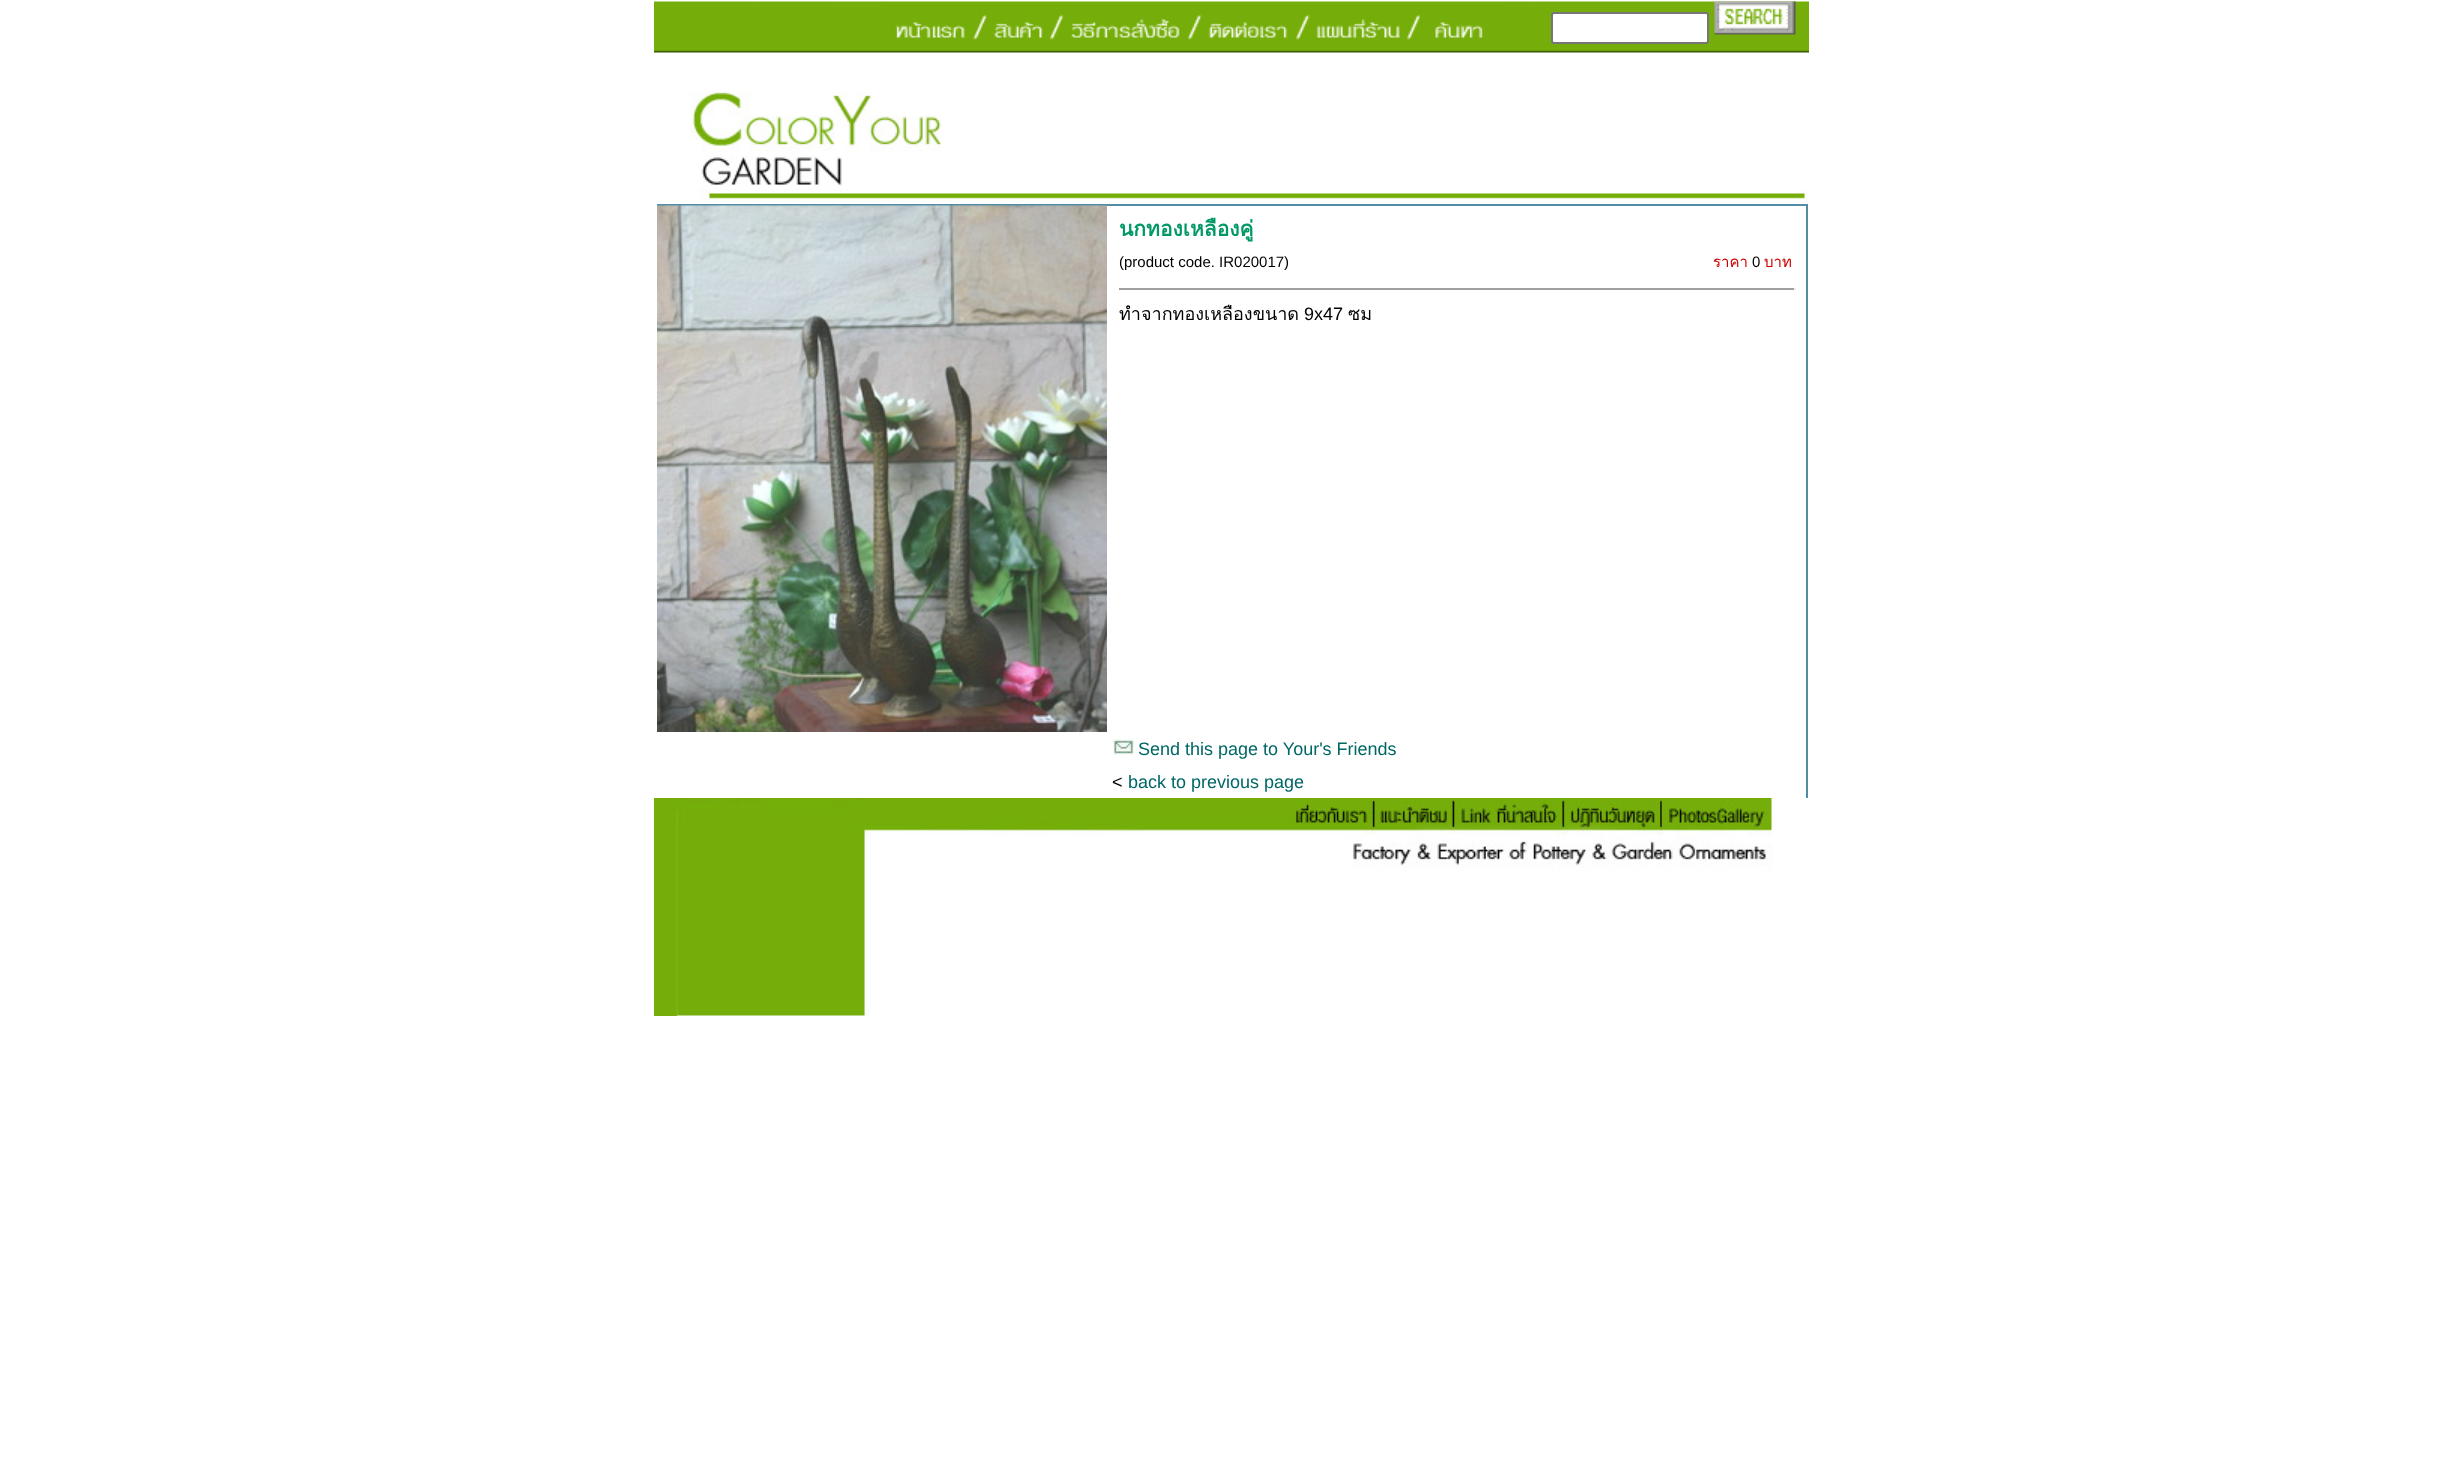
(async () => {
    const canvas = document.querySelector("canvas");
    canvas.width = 2462;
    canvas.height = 1464;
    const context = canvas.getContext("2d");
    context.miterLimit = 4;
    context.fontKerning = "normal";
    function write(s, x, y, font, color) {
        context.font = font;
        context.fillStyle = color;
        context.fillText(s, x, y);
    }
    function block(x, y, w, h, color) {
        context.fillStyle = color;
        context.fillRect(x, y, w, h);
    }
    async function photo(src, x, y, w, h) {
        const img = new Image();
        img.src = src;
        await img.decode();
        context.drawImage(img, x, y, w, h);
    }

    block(0, 0, 2462, 1464, "rgb(255, 255, 255)");
    await photo("media/1.png", 654, 1, 228, 52);
    await photo("media/2.png", 882, 1, 657, 52);
    await photo("media/3.png", 882, 5, 624, 35);
    await photo("media/4.png", 1539, 1, 270, 52);
    context.beginPath();
    context.roundRect(1552, 13, 156, 30, 2);
    context.fill();
    context.strokeStyle = "rgb(118, 118, 118)";
    context.lineWidth = 2;
    context.stroke();
    await photo("media/5.png", 1714, 1, 82, 34);
    await photo("media/6.png", 690, 91, 252, 61);
    await photo("media/7.png", 701, 155, 141, 31);
    await photo("media/8.png", 699, 189, 1108, 12);
    block(657, 204, 1151, 2, "rgb(83, 141, 165)");
    await photo("media/9.png", 657, 205, 450, 527);
    write("นกทองเหลืองคู่", 1119, 236, "bold 21px Loma", "rgb(0, 153, 102)");
    write("(product code. IR020017)", 1119, 267, "15px Liberation Sans", "rgb(0, 0, 0)");
    write("ราคา", 1713, 267, "15px Loma", "rgb(204, 0, 0)");
    write("0", 1752, 267, "15px Liberation Sans", "rgb(0, 0, 0)");
    write("บาท", 1764, 267, "15px Loma", "rgb(204, 0, 0)");
    block(1119, 288, 677, 2, "rgb(159, 159, 159)");
    block(1794, 288, 2, 2, "rgb(238, 238, 238)");
    write("ทำจากทองเหลืองขนาด", 1119, 320, "18px Loma", "rgb(0, 0, 0)");
    write("9x47", 1304, 320, "18px Liberation Sans", "rgb(0, 0, 0)");
    write("ซม", 1348, 320, "18px Loma", "rgb(0, 0, 0)");
    await photo("media/10.png", 1113, 739, 21, 16);
    write("Send this page to Your's Friends", 1138, 755, "18px Liberation Sans", "rgb(0, 102, 102)");
    write("<", 1112, 788, "18px Liberation Sans", "rgb(0, 0, 0)");
    write("back to previous page", 1128, 788, "18px Liberation Sans", "rgb(0, 102, 102)");
    block(1806, 206, 2, 592, "rgb(83, 141, 165)");
    block(654, 798, 23, 218, "rgb(117, 174, 10)");
    await photo("media/11.png", 676, 798, 1097, 218);
})();
